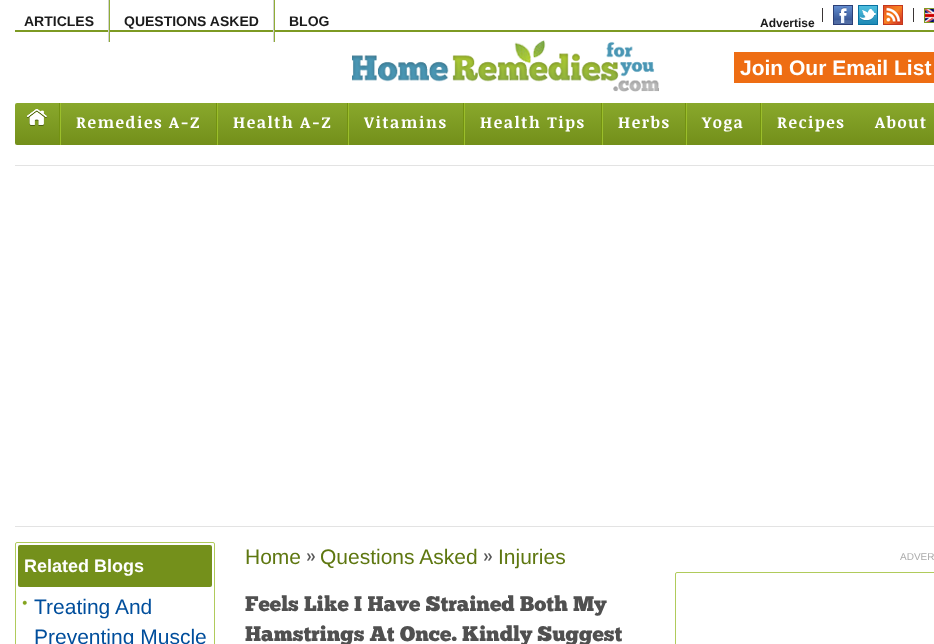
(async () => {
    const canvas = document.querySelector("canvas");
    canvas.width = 934;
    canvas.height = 644;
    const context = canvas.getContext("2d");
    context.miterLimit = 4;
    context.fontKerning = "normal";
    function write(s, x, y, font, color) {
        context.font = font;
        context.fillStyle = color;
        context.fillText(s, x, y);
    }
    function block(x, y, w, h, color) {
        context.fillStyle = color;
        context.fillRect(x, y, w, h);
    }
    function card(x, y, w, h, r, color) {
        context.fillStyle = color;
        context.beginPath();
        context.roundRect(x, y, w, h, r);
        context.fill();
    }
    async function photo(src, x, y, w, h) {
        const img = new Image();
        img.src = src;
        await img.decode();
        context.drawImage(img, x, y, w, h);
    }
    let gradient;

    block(0, 0, 934, 644, "rgb(255, 255, 255)");
    block(15, 30, 919, 2, "rgb(125, 154, 35)");
    block(109, 0, 1, 42, "rgb(143, 173, 54)");
    block(108, 0, 1, 42, "rgb(209, 209, 209)");
    write("ARTICLES", 24, 26, "bold 14px Liberation Sans", "rgb(27, 27, 27)");
    block(274, 0, 1, 42, "rgb(143, 173, 54)");
    block(273, 0, 1, 42, "rgb(209, 209, 209)");
    write("QUESTIONS ASKED", 124, 26, "bold 14px Liberation Sans", "rgb(27, 27, 27)");
    write("BLOG", 289, 26, "bold 14px Liberation Sans", "rgb(27, 27, 27)");
    block(822, 8, 1, 14, "rgb(58, 53, 53)");
    write("Advertise", 760, 27, "bold 12px Liberation Sans", "rgb(27, 27, 27)");
    block(913, 8, 1, 14, "rgb(58, 53, 53)");
    await photo("media/1.png", 833, 5, 20, 20);
    await photo("media/2.png", 858, 5, 20, 20);
    await photo("media/3.png", 883, 5, 20, 20);
    await photo("media/4.png", 924, 8, 10, 15);
    await photo("media/5.png", 352, 40, 307, 52);
    context.strokeStyle = "rgb(238, 109, 19)";
    context.strokeRect(734.5, 52.5, 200, 30);
    block(735, 53, 199, 29, "rgb(238, 109, 19)");
    write("Join Our Email List", 740, 75, "bold 21px Liberation Sans", "rgb(255, 255, 255)");
    gradient = context.createLinearGradient(500, 103, 500, 145);
    gradient.addColorStop(0, "rgb(137, 168, 44)");
    gradient.addColorStop(1, "rgb(115, 143, 26)");
    context.fillStyle = gradient;
    context.beginPath();
    context.roundRect(15, 103, 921, 42, 2);
    context.fill();
    await photo("media/6.png", 27, 109, 20, 17);
    block(60, 103, 1, 42, "rgb(155, 190, 43)");
    block(59, 103, 1, 42, "rgb(115, 146, 17)");
    block(217, 103, 1, 42, "rgb(155, 190, 43)");
    block(216, 103, 1, 42, "rgb(115, 146, 17)");
    context.letterSpacing = "1.6px";
    write("Remedies A-Z", 76, 128, "bold 16px Noticia Text", "rgb(255, 255, 255)");
    block(348, 103, 1, 42, "rgb(155, 190, 43)");
    block(347, 103, 1, 42, "rgb(115, 146, 17)");
    write("Health A-Z", 233, 128, "bold 16px Noticia Text", "rgb(255, 255, 255)");
    block(464, 103, 1, 42, "rgb(155, 190, 43)");
    block(463, 103, 1, 42, "rgb(115, 146, 17)");
    write("Vitamins", 364, 128, "bold 16px Noticia Text", "rgb(255, 255, 255)");
    block(602, 103, 1, 42, "rgb(155, 190, 43)");
    block(601, 103, 1, 42, "rgb(115, 146, 17)");
    write("Health Tips", 480, 128, "bold 16px Noticia Text", "rgb(255, 255, 255)");
    block(686, 103, 1, 42, "rgb(155, 190, 43)");
    block(685, 103, 1, 42, "rgb(115, 146, 17)");
    write("Herbs", 618, 128, "bold 16px Noticia Text", "rgb(255, 255, 255)");
    block(761, 103, 1, 42, "rgb(155, 190, 43)");
    block(760, 103, 1, 42, "rgb(115, 146, 17)");
    write("Yoga", 702, 128, "bold 16px Noticia Text", "rgb(255, 255, 255)");
    write("Recipes", 777, 128, "bold 16px Noticia Text", "rgb(255, 255, 255)");
    write("About", 875, 128, "bold 16px Noticia Text", "rgb(255, 255, 255)");
    block(15, 165, 919, 1, "rgb(227, 227, 227)");
    block(15, 526, 919, 1, "rgb(227, 227, 227)");
    context.letterSpacing = "0px";
    write("Home", 245, 564, "21px Liberation Sans", "rgb(94, 119, 16)");
    await photo("media/7.png", 307, 553, 8, 8);
    write("Questions Asked", 320, 564, "21px Liberation Sans", "rgb(94, 119, 16)");
    await photo("media/7.png", 484, 553, 8, 8);
    write("Injuries", 498, 564, "21px Liberation Sans", "rgb(94, 119, 16)");
    write("Feels Like I Have Strained Both My", 245, 611, "21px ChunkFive", "rgb(80, 80, 80)");
    write("Hamstrings At Once. Kindly Suggest", 245, 641, "21px ChunkFive", "rgb(80, 80, 80)");
    write("ADVER", 900, 560, "10px Liberation Sans", "rgb(171, 171, 171)");
    context.beginPath();
    context.roundRect(675.5, 572.5, 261, 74, 1.5);
    context.strokeStyle = "rgb(176, 203, 91)";
    context.stroke();
    context.beginPath();
    context.roundRect(15.5, 542.5, 199, 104, 1.5);
    context.stroke();
    card(18, 545, 194, 42, 2, "rgb(116, 144, 27)");
    write("Related Blogs", 24, 572, "bold 18px Liberation Sans", "rgb(255, 255, 255)");
    await photo("media/8.png", 22, 600, 5, 6);
    write("Treating And", 34, 614, "21px Liberation Sans", "rgb(0, 78, 156)");
    write("Preventing Muscle", 34, 644, "21px Liberation Sans", "rgb(0, 78, 156)");
})();
